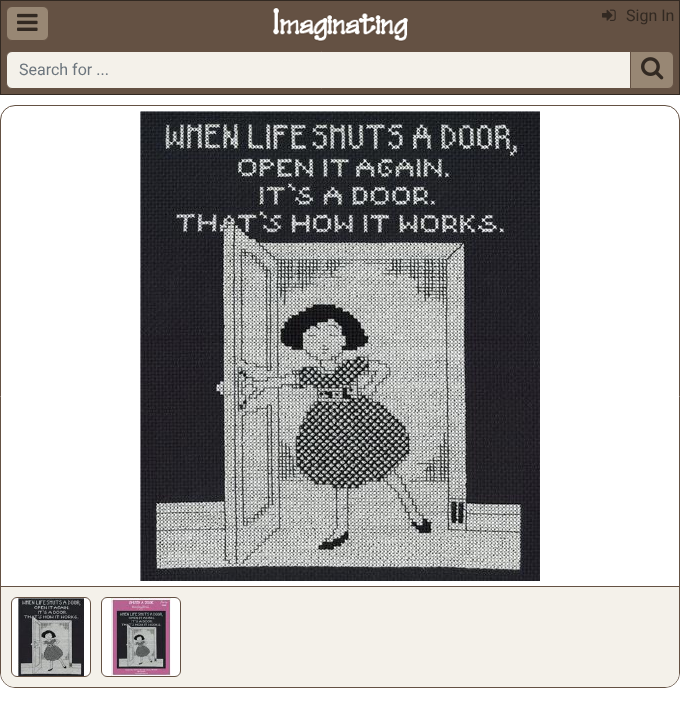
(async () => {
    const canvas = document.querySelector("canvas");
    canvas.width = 680;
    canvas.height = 714;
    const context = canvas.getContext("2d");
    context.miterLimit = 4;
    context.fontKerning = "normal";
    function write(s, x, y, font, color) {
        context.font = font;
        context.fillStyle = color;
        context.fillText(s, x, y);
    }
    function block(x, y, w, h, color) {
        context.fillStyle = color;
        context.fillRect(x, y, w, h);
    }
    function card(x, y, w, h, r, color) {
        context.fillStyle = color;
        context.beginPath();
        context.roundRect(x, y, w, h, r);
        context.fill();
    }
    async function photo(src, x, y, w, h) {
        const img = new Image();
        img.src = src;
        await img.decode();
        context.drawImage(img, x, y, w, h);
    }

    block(0, 0, 680, 714, "rgb(255, 255, 255)");
    block(1, 1, 678, 93, "rgb(100, 81, 67)");
    await photo("media/1.png", 273, 7, 135, 35);
    context.strokeStyle = "rgb(50, 41, 34)";
    context.strokeRect(0.5, 0.5, 679, 94);
    context.fillStyle = "rgb(152, 135, 116)";
    context.beginPath();
    context.roundRect(6.5, 6.5, 42, 34, 5.5);
    context.fill();
    context.strokeStyle = "rgb(100, 81, 67)";
    context.stroke();
    await photo("media/2.png", 17, 13, 21, 18);
    await photo("media/3.png", 602, 9, 14, 12);
    write("Sign In", 626, 21, "16px Roboto", "rgb(50, 41, 34)");
    context.fillStyle = "rgb(244, 241, 234)";
    context.beginPath();
    context.roundRect(6.5, 51.5, 624, 37, [5.5, 0, 0, 5.5]);
    context.fill();
    context.stroke();
    write("Search for ...", 19, 75, "16px Roboto", "rgb(108, 117, 125)");
    context.fillStyle = "rgb(152, 135, 116)";
    context.beginPath();
    context.roundRect(630.5, 51.5, 43, 37, [0, 5.5, 5.5, 0]);
    context.fill();
    context.stroke();
    await photo("media/4.png", 641, 57, 23, 23);
    context.beginPath();
    context.roundRect(0.5, 105.5, 679, 582, 14.5);
    context.stroke();
    await photo("media/5.png", 140, 111, 400, 470);
    context.fillStyle = "rgb(244, 241, 234)";
    context.beginPath();
    context.roundRect(1, 587, 678, 100, [0, 0, 14, 14]);
    context.fill();
    block(1, 586, 678, 1, "rgb(100, 81, 67)");
    card(11, 597, 80, 80, 6, "rgb(255, 255, 255)");
    await photo("media/6.png", 18, 598, 66, 78);
    context.beginPath();
    context.roundRect(11.5, 597.5, 79, 79, 5.5);
    context.stroke();
    card(101, 597, 80, 80, 6, "rgb(255, 255, 255)");
    await photo("media/7.png", 111, 598, 60, 78);
    context.beginPath();
    context.roundRect(101.5, 597.5, 79, 79, 5.5);
    context.stroke();
})();
